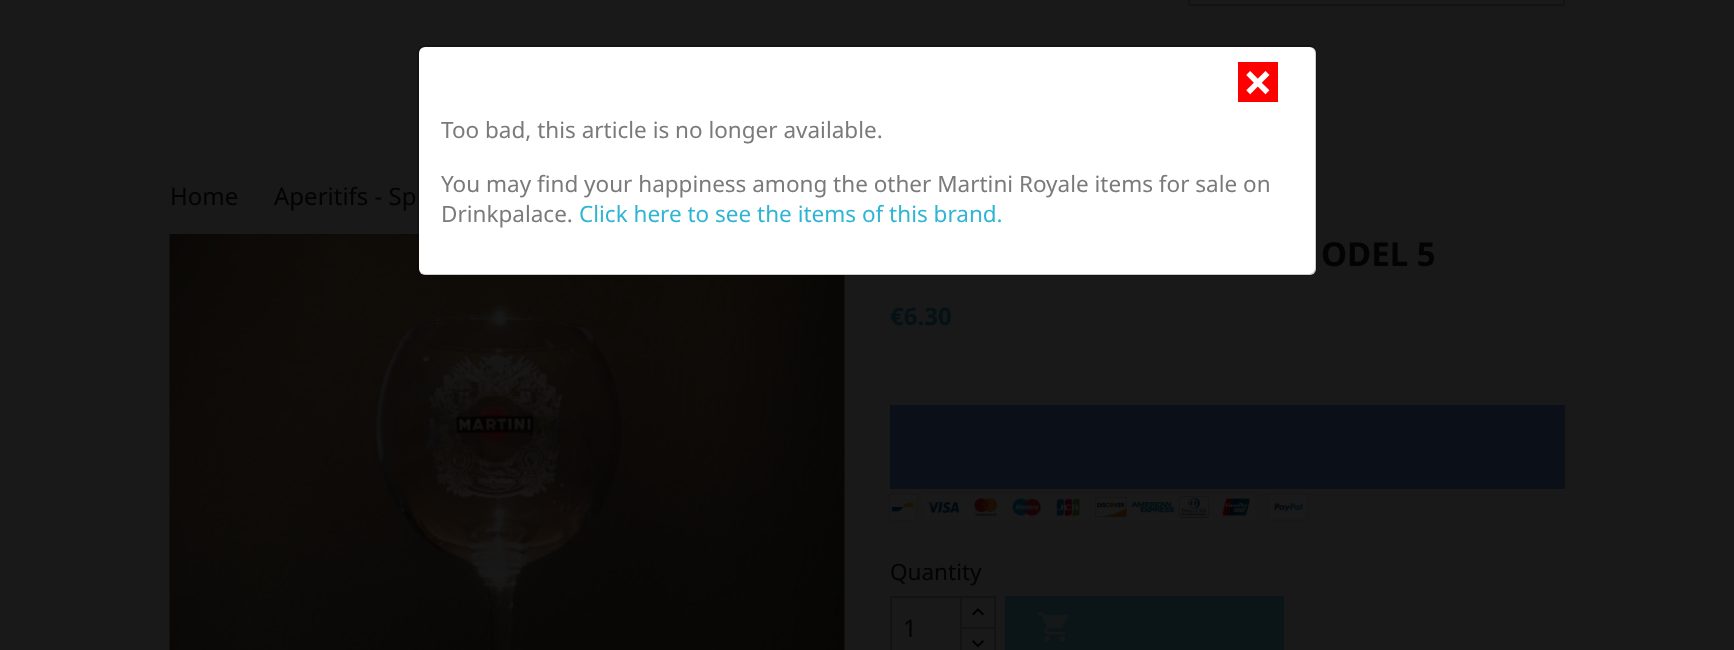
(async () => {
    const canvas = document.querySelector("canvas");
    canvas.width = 1734;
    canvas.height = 650;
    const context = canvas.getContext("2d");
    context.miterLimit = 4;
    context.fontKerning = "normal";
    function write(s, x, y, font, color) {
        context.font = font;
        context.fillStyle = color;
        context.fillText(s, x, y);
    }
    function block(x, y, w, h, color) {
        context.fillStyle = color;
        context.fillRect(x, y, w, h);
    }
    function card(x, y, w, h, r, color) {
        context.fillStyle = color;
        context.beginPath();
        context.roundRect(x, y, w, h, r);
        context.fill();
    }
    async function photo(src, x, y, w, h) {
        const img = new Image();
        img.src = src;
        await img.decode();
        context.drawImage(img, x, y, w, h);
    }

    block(0, 0, 1734, 650, "rgb(25, 25, 25)");
    context.strokeStyle = "rgb(19, 19, 19)";
    context.lineWidth = 2;
    context.strokeRect(1189, -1, 375, 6);
    write("Home", 170, 205, "24px Noto Sans", "rgb(3, 3, 3)");
    write("Aperitifs - Sp", 274, 205, "24px Noto Sans", "rgb(3, 3, 3)");
    await photo("media/7.png", 169, 234, 676, 416);
    card(419, 47, 897, 228, 6, "rgb(255, 255, 255)");
    context.beginPath();
    context.roundRect(418, 46, 898, 229, 7);
    context.strokeStyle = "rgba(0, 0, 0, 0.2)";
    context.stroke();
    block(1238, 62, 40, 40, "rgb(255, 0, 0)");
    write("×", 1243, 101, "bold 52px Noto Sans", "rgb(255, 255, 255)");
    write("Too bad, this article is no longer available.", 441, 138, "22.5px Noto Sans", "rgb(122, 122, 122)");
    write("You may find your happiness among the other Martini Royale items for sale on", 441, 192, "22.5px Noto Sans", "rgb(122, 122, 122)");
    write("Drinkpalace.", 441, 222, "22.5px Noto Sans", "rgb(122, 122, 122)");
    write("Click here to see the items of this brand.", 579, 222, "22.5px Noto Sans", "rgb(47, 181, 210)");
    write("Quantity", 890, 580, "22.5px Noto Sans", "rgb(3, 3, 3)");
    context.strokeStyle = "rgb(19, 19, 19)";
    context.strokeRect(961, 597, 34, 32);
    block(962, 629, 32, 1, "rgb(25, 25, 25)");
    context.strokeRect(961, 628, 34, 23);
    context.strokeRect(891, 597, 70, 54);
    write("1", 903, 637, "24px Noto Sans", "rgb(3, 3, 3)");
    await photo("media/1.png", 972, 608, 12, 8);
    await photo("media/2.png", 972, 640, 12, 8);
    block(1005, 596, 279, 54, "rgb(11, 20, 22)");
    await photo("media/3.png", 1038, 612, 30, 30);
    write("ODEL 5", 1321, 266, "bold 33px Noto Sans", "rgb(3, 3, 3)");
    write("€6.30", 890, 325, "bold 24px Noto Sans", "rgb(5, 18, 21)");
    block(890, 405, 675, 84, "rgb(10, 15, 24)");
    await photo("media/4.png", 889, 493, 28, 28);
    await photo("media/5.png", 922, 493, 334, 28);
    await photo("media/6.png", 1267, 493, 41, 28);
})();
